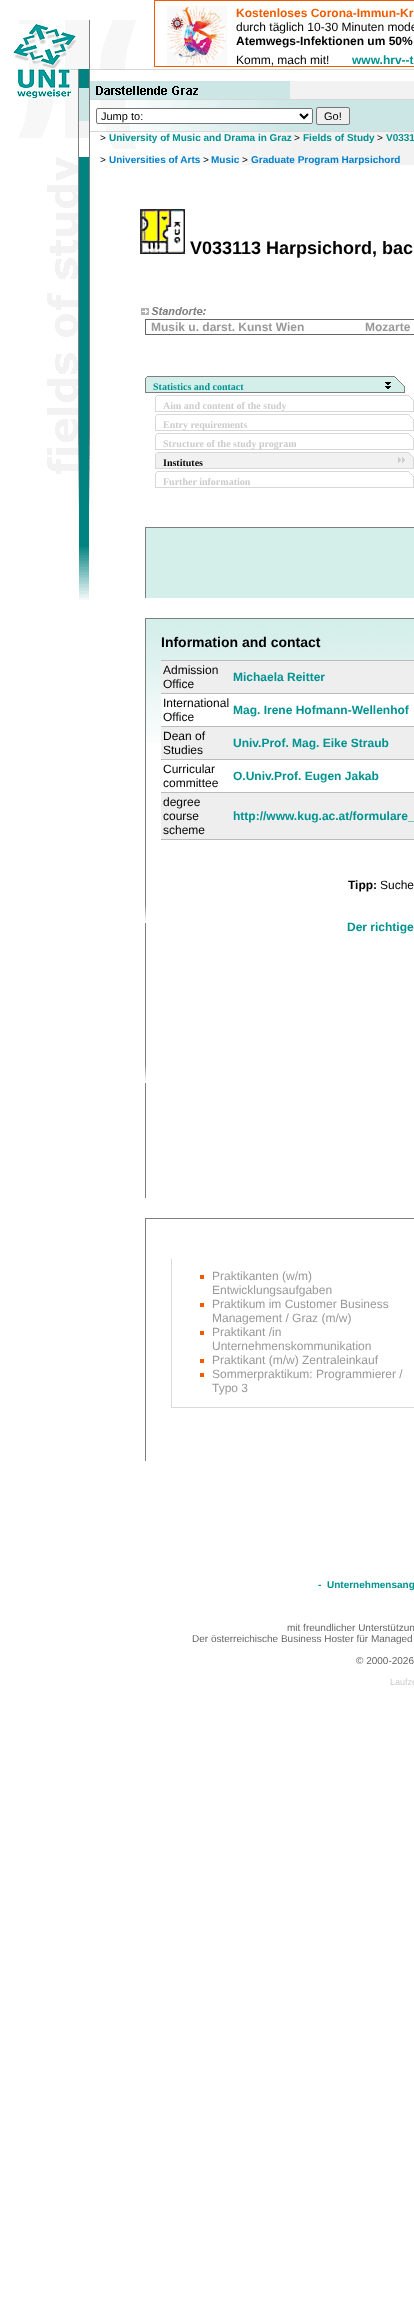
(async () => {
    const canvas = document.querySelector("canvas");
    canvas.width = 414;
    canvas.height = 2318;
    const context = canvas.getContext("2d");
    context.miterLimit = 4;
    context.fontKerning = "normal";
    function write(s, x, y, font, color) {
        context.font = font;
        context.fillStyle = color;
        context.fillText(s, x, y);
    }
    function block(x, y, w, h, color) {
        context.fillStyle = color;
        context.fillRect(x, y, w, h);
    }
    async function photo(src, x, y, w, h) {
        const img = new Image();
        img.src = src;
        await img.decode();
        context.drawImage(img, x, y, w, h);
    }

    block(0, 0, 414, 2318, "rgb(255, 255, 255)");
    await photo("media/1.png", 13, 20, 77, 118);
    await photo("media/2.png", 47, 138, 43, 462);
    await photo("media/3.png", 90, 20, 324, 50);
    context.strokeStyle = "rgb(241, 91, 0)";
    context.strokeRect(154.5, 0.5, 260, 66);
    await photo("media/4.png", 167, 6, 60, 60);
    write("Kostenloses Corona-Immun-Kr", 236, 17, "bold 12px Liberation Sans", "rgb(241, 91, 0)");
    write("durch täglich 10-30 Minuten mode", 236, 31, "12px Liberation Sans", "rgb(0, 0, 0)");
    write("Atemwegs-Infektionen um 50%", 236, 45, "bold 12px Liberation Sans", "rgb(0, 0, 0)");
    write("Komm, mach mit!", 236, 64, "12px Liberation Sans", "rgb(0, 0, 0)");
    write("www.hrv--t", 352, 64, "bold 12px Liberation Sans", "rgb(0, 147, 146)");
    await photo("media/5.png", 290, 81, 124, 18);
    block(90, 81, 200, 18, "rgb(204, 230, 230)");
    await photo("media/6.png", 96, 86, 102, 9);
    await photo("media/7.png", 90, 99, 324, 33);
    context.fillStyle = "rgb(255, 255, 255)";
    context.beginPath();
    context.roundRect(96.5, 108.5, 216, 15, 1.5);
    context.fill();
    context.strokeStyle = "rgb(118, 118, 118)";
    context.stroke();
    context.beginPath();
    context.moveTo(300, 114);
    context.lineTo(304, 118);
    context.lineTo(308, 114);
    context.strokeStyle = "rgb(0, 0, 0)";
    context.lineWidth = 2;
    context.stroke();
    write("Jump to:", 101, 120, "11px Liberation Sans", "rgb(0, 0, 0)");
    context.fillStyle = "rgb(239, 239, 239)";
    context.beginPath();
    context.roundRect(316.5, 107.5, 33, 17, 1.5);
    context.fill();
    context.strokeStyle = "rgb(118, 118, 118)";
    context.lineWidth = 1;
    context.stroke();
    write("Go!", 324, 120, "11px Liberation Sans", "rgb(0, 0, 0)");
    await photo("media/8.png", 107, 132, 307, 33);
    write(">", 100, 141, "10px Liberation Sans", "rgb(0, 0, 0)");
    write("University of Music and Drama in Graz", 109, 141, "bold 10px Liberation Sans", "rgb(0, 147, 146)");
    write(">", 294, 141, "10px Liberation Sans", "rgb(0, 0, 0)");
    write("Fields of Study", 303, 141, "bold 10px Liberation Sans", "rgb(0, 147, 146)");
    write(">", 377, 141, "10px Liberation Sans", "rgb(0, 0, 0)");
    write("V0331", 386, 141, "bold 10px Liberation Sans", "rgb(0, 147, 146)");
    write(">", 100, 163, "10px Liberation Sans", "rgb(0, 0, 0)");
    write("Universities of Arts", 109, 163, "bold 10px Liberation Sans", "rgb(0, 127, 204)");
    write(">", 203, 163, "10px Liberation Sans", "rgb(0, 0, 0)");
    write("Music", 211, 163, "bold 10px Liberation Sans", "rgb(0, 127, 204)");
    write(">", 242, 163, "10px Liberation Sans", "rgb(0, 0, 0)");
    write("Graduate Program Harpsichord", 251, 163, "bold 10px Liberation Sans", "rgb(0, 127, 204)");
    await photo("media/9.png", 140, 209, 45, 45);
    write("V033113 Harpsichord, bac", 190, 254, "bold 18px Liberation Sans", "rgb(0, 0, 0)");
    await photo("media/10.png", 141, 307, 65, 8);
    context.strokeStyle = "rgb(102, 102, 102)";
    context.strokeRect(145.5, 319.5, 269, 15);
    write("Musik u. darst. Kunst Wien", 151, 331, "bold 12px Liberation Sans", "rgb(153, 153, 153)");
    write("Mozarte", 365, 331, "bold 12px Liberation Sans", "rgb(153, 153, 153)");
    block(146, 376, 2, 16, "rgb(212, 238, 234)");
    await photo("media/11.png", 145, 376, 3, 16);
    block(148, 377, 256, 15, "rgb(212, 238, 234)");
    block(148, 376, 246, 1, "rgb(127, 127, 127)");
    write("Statistics and contact", 153, 390, "bold 10px Liberation Serif", "rgb(0, 147, 146)");
    await photo("media/12.png", 385, 382, 6, 7);
    await photo("media/13.png", 394, 376, 11, 16);
    block(145, 392, 260, 1, "rgb(126, 126, 126)");
    await photo("media/14.png", 155, 395, 3, 16);
    block(158, 395, 250, 1, "rgb(216, 216, 216)");
    block(155, 411, 259, 1, "rgb(216, 216, 216)");
    write("Aim and content of the study", 163, 409, "bold 10px Liberation Serif", "rgb(204, 204, 204)");
    await photo("media/15.png", 408, 395, 6, 16);
    await photo("media/14.png", 155, 414, 3, 16);
    block(158, 414, 250, 1, "rgb(216, 216, 216)");
    block(155, 430, 259, 1, "rgb(216, 216, 216)");
    write("Entry requirements", 163, 428, "bold 10px Liberation Serif", "rgb(204, 204, 204)");
    await photo("media/15.png", 408, 414, 6, 16);
    await photo("media/14.png", 155, 433, 3, 16);
    block(158, 433, 250, 1, "rgb(216, 216, 216)");
    block(155, 449, 259, 1, "rgb(216, 216, 216)");
    write("Structure of the study program", 163, 447, "bold 10px Liberation Serif", "rgb(204, 204, 204)");
    await photo("media/15.png", 408, 433, 6, 16);
    block(156, 452, 2, 16, "rgb(241, 241, 241)");
    await photo("media/16.png", 155, 452, 3, 16);
    block(158, 453, 250, 15, "rgb(241, 241, 241)");
    block(158, 452, 250, 1, "rgb(216, 216, 216)");
    write("Institutes", 163, 466, "bold 10px Liberation Serif", "rgb(0, 0, 0)");
    await photo("media/17.png", 398, 457, 7, 6);
    block(408, 452, 5, 16, "rgb(241, 241, 241)");
    await photo("media/18.png", 408, 452, 6, 16);
    block(155, 468, 259, 1, "rgb(216, 216, 216)");
    await photo("media/14.png", 155, 471, 3, 16);
    block(158, 471, 250, 1, "rgb(216, 216, 216)");
    write("Further information", 163, 485, "bold 10px Liberation Serif", "rgb(204, 204, 204)");
    await photo("media/15.png", 408, 471, 6, 16);
    block(155, 487, 259, 1, "rgb(216, 216, 216)");
    block(145, 527, 269, 1, "rgb(126, 126, 126)");
    block(145, 528, 1, 70, "rgb(126, 126, 126)");
    block(146, 528, 268, 70, "rgb(212, 238, 234)");
    block(145, 618, 269, 1, "rgb(126, 126, 126)");
    block(145, 619, 1, 579, "rgb(126, 126, 126)");
    await photo("media/19.png", 146, 619, 268, 124);
    write("Information and contact", 161, 647, "bold 14px Liberation Sans", "rgb(0, 0, 0)");
    block(161, 661, 253, 32, "rgb(238, 238, 238)");
    write("Admission", 163, 674, "12px Liberation Sans", "rgb(0, 0, 0)");
    write("Office", 163, 688, "12px Liberation Sans", "rgb(0, 0, 0)");
    block(161, 660, 253, 1, "rgb(187, 187, 187)");
    write("Michaela Reitter", 233, 681, "bold 12px Liberation Sans", "rgb(0, 147, 146)");
    block(161, 694, 253, 32, "rgb(255, 255, 255)");
    write("International", 163, 707, "12px Liberation Sans", "rgb(0, 0, 0)");
    write("Office", 163, 721, "12px Liberation Sans", "rgb(0, 0, 0)");
    block(161, 693, 253, 1, "rgb(187, 187, 187)");
    write("Mag. Irene Hofmann-Wellenhof", 233, 714, "bold 12px Liberation Sans", "rgb(0, 147, 146)");
    block(161, 727, 253, 32, "rgb(238, 238, 238)");
    write("Dean of", 163, 740, "12px Liberation Sans", "rgb(0, 0, 0)");
    write("Studies", 163, 754, "12px Liberation Sans", "rgb(0, 0, 0)");
    block(161, 726, 253, 1, "rgb(187, 187, 187)");
    write("Univ.Prof. Mag. Eike Straub", 233, 747, "bold 12px Liberation Sans", "rgb(0, 147, 146)");
    write("Curricular", 163, 773, "12px Liberation Sans", "rgb(0, 0, 0)");
    write("committee", 163, 787, "12px Liberation Sans", "rgb(0, 0, 0)");
    block(161, 759, 253, 1, "rgb(187, 187, 187)");
    write("O.Univ.Prof. Eugen Jakab", 233, 780, "bold 12px Liberation Sans", "rgb(0, 147, 146)");
    block(161, 793, 253, 46, "rgb(238, 238, 238)");
    write("degree", 163, 806, "12px Liberation Sans", "rgb(0, 0, 0)");
    write("course", 163, 820, "12px Liberation Sans", "rgb(0, 0, 0)");
    write("scheme", 163, 834, "12px Liberation Sans", "rgb(0, 0, 0)");
    block(161, 792, 253, 1, "rgb(187, 187, 187)");
    block(161, 839, 253, 1, "rgb(187, 187, 187)");
    write("http://www.kug.ac.at/formulare_", 233, 820, "bold 12px Liberation Sans", "rgb(0, 147, 146)");
    await photo("media/20.png", 145, 905, 1, 18);
    write("Tipp:", 348, 889, "bold 12px Liberation Sans", "rgb(0, 0, 0)");
    write("Suche", 380, 889, "12px Liberation Sans", "rgb(0, 0, 0)");
    write("Der richtige", 347, 931, "bold 12px Liberation Sans", "rgb(0, 147, 146)");
    await photo("media/20.png", 145, 1065, 1, 18);
    block(145, 1218, 269, 1, "rgb(126, 126, 126)");
    block(145, 1219, 1, 242, "rgb(126, 126, 126)");
    block(171, 1259, 1, 148, "rgb(217, 217, 217)");
    block(200, 1275, 4, 4, "rgb(241, 91, 0)");
    write("Praktikanten (w/m)", 212, 1280, "12px Liberation Sans", "rgb(153, 153, 153)");
    write("Entwicklungsaufgaben", 212, 1294, "12px Liberation Sans", "rgb(153, 153, 153)");
    block(200, 1303, 4, 4, "rgb(241, 91, 0)");
    write("Praktikum im Customer Business", 212, 1308, "12px Liberation Sans", "rgb(153, 153, 153)");
    write("Management / Graz (m/w)", 212, 1322, "12px Liberation Sans", "rgb(153, 153, 153)");
    block(200, 1331, 4, 4, "rgb(241, 91, 0)");
    write("Praktikant /in", 212, 1336, "12px Liberation Sans", "rgb(153, 153, 153)");
    write("Unternehmenskommunikation", 212, 1350, "12px Liberation Sans", "rgb(153, 153, 153)");
    block(200, 1359, 4, 4, "rgb(241, 91, 0)");
    write("Praktikant (m/w) Zentraleinkauf", 212, 1364, "12px Liberation Sans", "rgb(153, 153, 153)");
    block(200, 1373, 4, 4, "rgb(241, 91, 0)");
    write("Sommerpraktikum: Programmierer /", 212, 1378, "12px Liberation Sans", "rgb(153, 153, 153)");
    write("Typo 3", 212, 1392, "12px Liberation Sans", "rgb(153, 153, 153)");
    block(171, 1407, 243, 1, "rgb(217, 217, 217)");
    write("-", 318, 1588, "bold 10px Liberation Sans", "rgb(0, 147, 146)");
    write("Unternehmensang", 327, 1588, "bold 10px Liberation Sans", "rgb(0, 147, 146)");
    write("mit freundlicher Unterstützun", 287, 1631, "10px Liberation Sans", "rgb(102, 102, 102)");
    write("Der österreichische Business Hoster für Managed", 192, 1642, "10px Liberation Sans", "rgb(102, 102, 102)");
    write("© 2000-2026", 356, 1664, "10px Liberation Sans", "rgb(102, 102, 102)");
    write("Laufze", 390, 1685, "9px Liberation Sans", "rgb(204, 204, 204)");
})();
